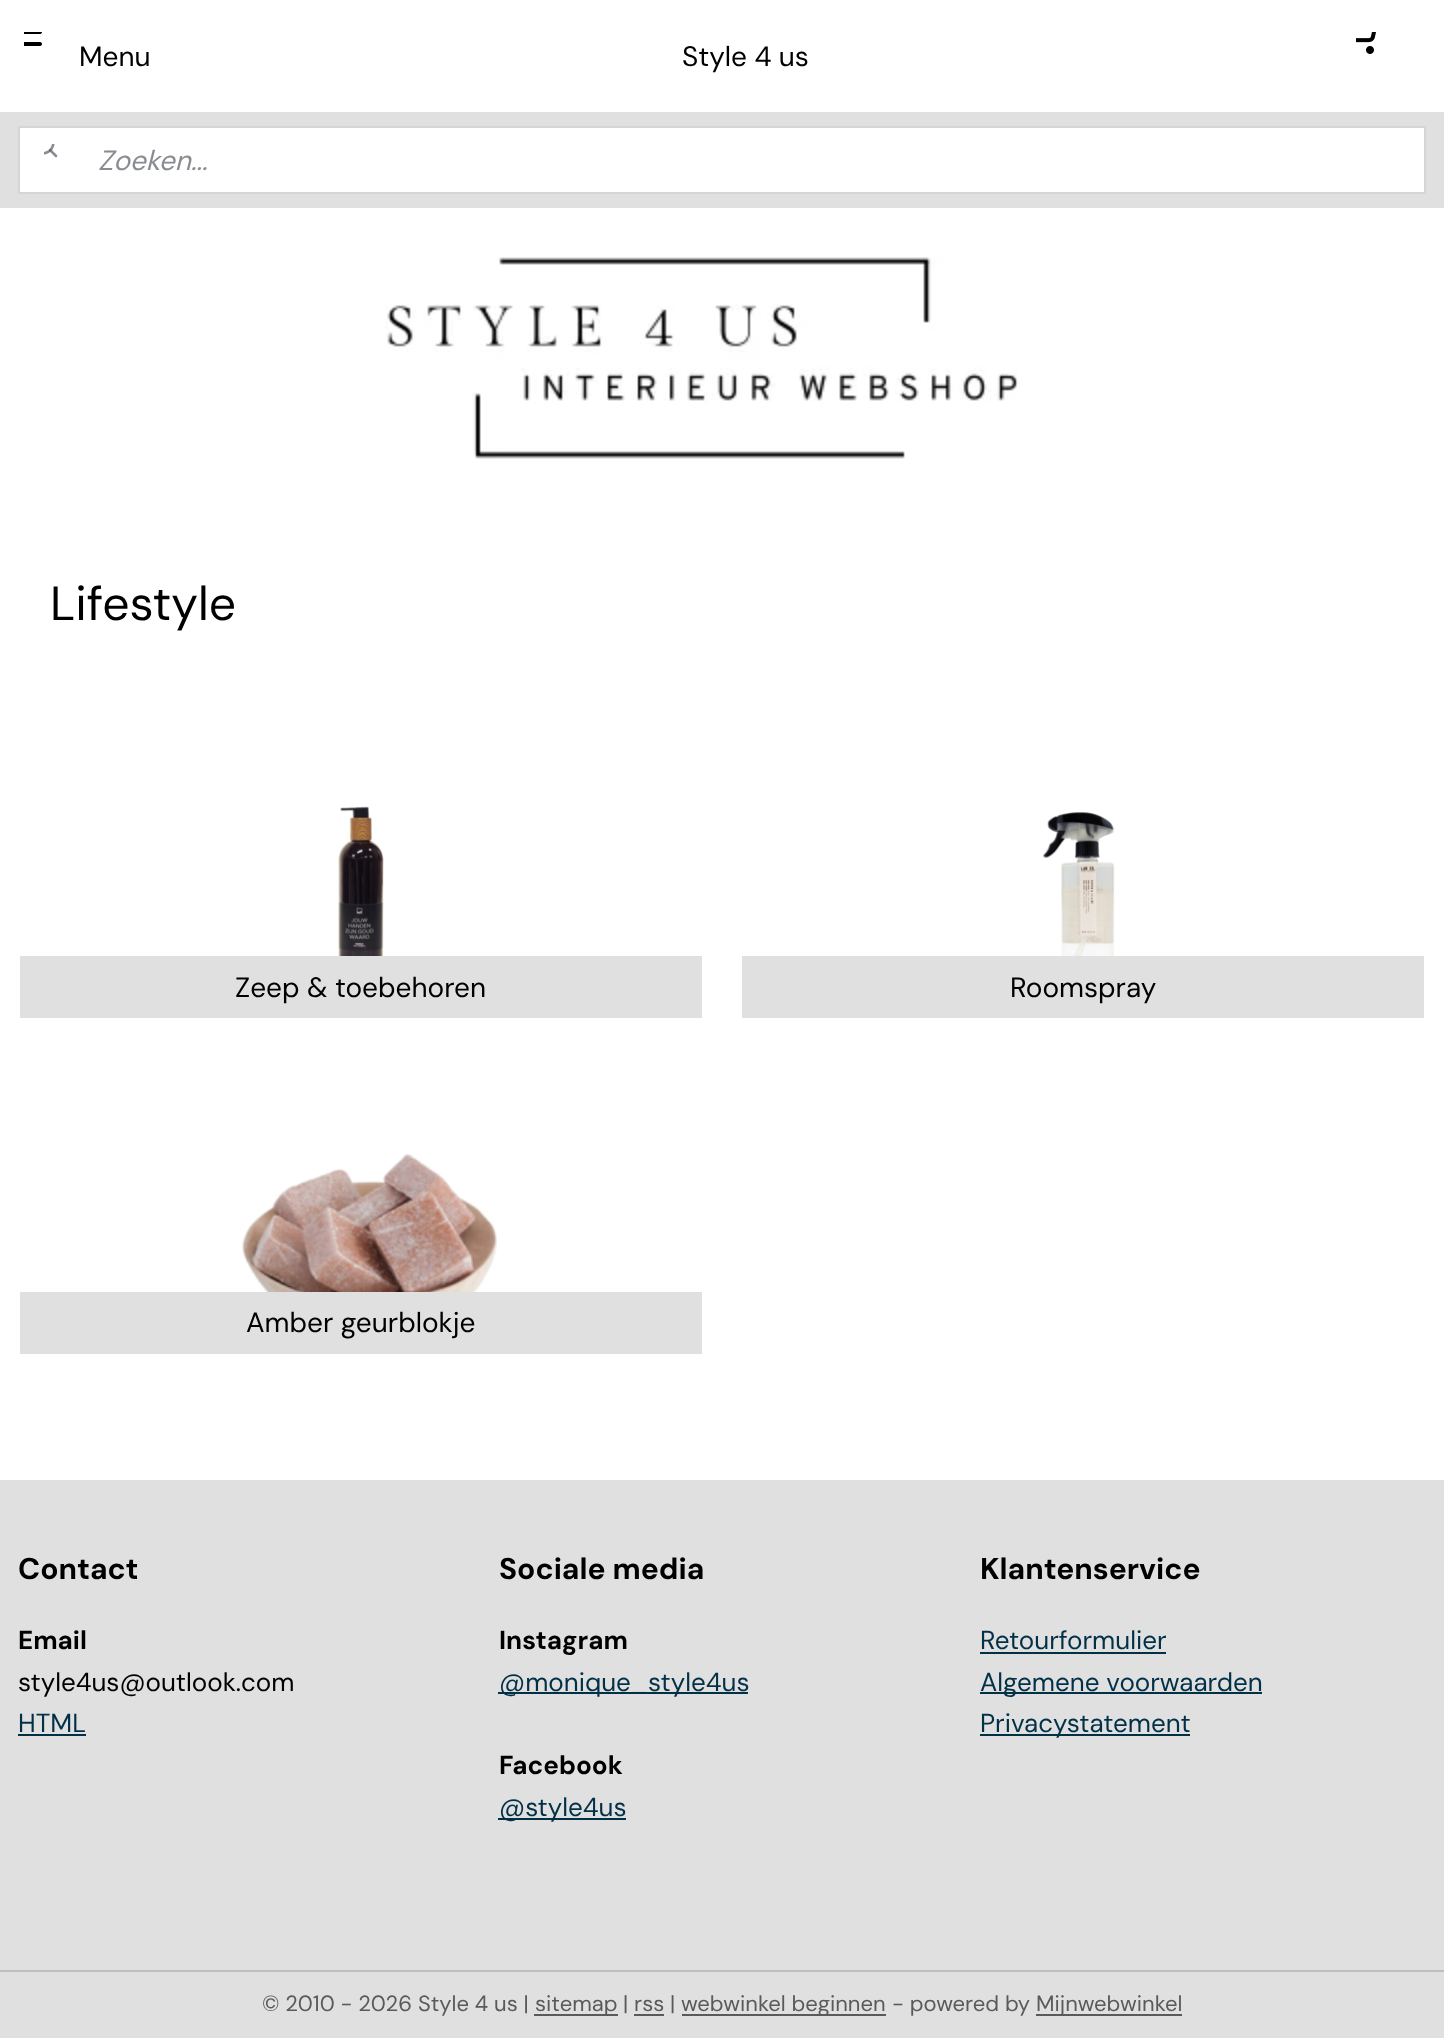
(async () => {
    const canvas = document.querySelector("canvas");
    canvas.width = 1444;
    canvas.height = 2038;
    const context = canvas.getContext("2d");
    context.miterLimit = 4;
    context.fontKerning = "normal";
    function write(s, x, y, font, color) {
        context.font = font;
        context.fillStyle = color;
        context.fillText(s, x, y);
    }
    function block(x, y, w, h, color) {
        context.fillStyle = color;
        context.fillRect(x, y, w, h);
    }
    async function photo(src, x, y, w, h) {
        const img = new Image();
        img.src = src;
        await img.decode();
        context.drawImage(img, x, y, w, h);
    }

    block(0, 0, 1444, 2038, "rgb(255, 255, 255)");
    await photo("media/1.png", 24, 32, 18, 14);
    write("Menu", 79, 66, "28px DM Sans", "rgb(0, 0, 0)");
    write("Style 4 us", 682, 66, "28px DM Sans", "rgb(0, 0, 0)");
    await photo("media/2.png", 1356, 32, 20, 22);
    block(0, 112, 1444, 96, "rgb(224, 224, 224)");
    context.fillStyle = "rgb(255, 255, 255)";
    context.beginPath();
    context.rect(19, 127, 1406, 66);
    context.fill();
    context.strokeStyle = "rgb(211, 213, 217)";
    context.lineWidth = 2;
    context.stroke();
    await photo("media/3.png", 44, 144, 14, 14);
    write("Zoeken...", 98, 170, "italic 28px DM Sans", "rgb(137, 140, 145)");
    await photo("media/4.png", 385, 257, 634, 202);
    write("Lifestyle", 50, 620, "48px DM Sans", "rgb(0, 0, 0)");
    await photo("media/5.png", 338, 806, 46, 150);
    block(20, 956, 682, 62, "rgb(224, 224, 224)");
    write("Zeep & toebehoren", 235, 997, "28px DM Sans", "rgb(0, 0, 0)");
    await photo("media/6.png", 1042, 812, 73, 144);
    block(742, 956, 682, 62, "rgb(224, 224, 224)");
    write("Roomspray", 1010, 997, "28px DM Sans", "rgb(0, 0, 0)");
    await photo("media/7.png", 242, 1154, 255, 138);
    block(20, 1292, 682, 62, "rgb(224, 224, 224)");
    write("Amber geurblokje", 246, 1332, "28px DM Sans", "rgb(0, 0, 0)");
    block(0, 1480, 1444, 490, "rgb(224, 224, 224)");
    write("Contact", 18, 1579, "bold 30px DM Sans", "rgb(0, 0, 0)");
    write("Email", 18, 1649, "bold 26px DM Sans", "rgb(0, 0, 0)");
    write("style4us@outlook.com", 18, 1691, "26px DM Sans", "rgb(0, 0, 0)");
    write("HTML", 18, 1732, "26px DM Sans", "rgb(2, 48, 71)");
    block(18, 1734, 68, 2, "rgb(2, 48, 71)");
    write("Sociale media", 499, 1579, "bold 30px DM Sans", "rgb(0, 0, 0)");
    write("Instagram", 499, 1649, "bold 26px DM Sans", "rgb(0, 0, 0)");
    block(498, 1692, 250, 2, "rgb(2, 48, 71)");
    write("@monique_style4us", 499, 1691, "26px DM Sans", "rgb(2, 48, 71)");
    write("Facebook", 499, 1774, "bold 26px DM Sans", "rgb(0, 0, 0)");
    block(498, 1818, 128, 2, "rgb(2, 48, 71)");
    write("@style4us", 499, 1816, "26px DM Sans", "rgb(2, 48, 71)");
    write("Klantenservice", 980, 1579, "bold 30px DM Sans", "rgb(0, 0, 0)");
    write("Retourformulier", 980, 1649, "26px DM Sans", "rgb(2, 48, 71)");
    block(980, 1652, 186, 2, "rgb(2, 48, 71)");
    block(980, 1692, 282, 2, "rgb(2, 48, 71)");
    write("Algemene voorwaarden", 980, 1691, "26px DM Sans", "rgb(2, 48, 71)");
    block(980, 1734, 210, 2, "rgb(2, 48, 71)");
    write("Privacystatement", 980, 1732, "26px DM Sans", "rgb(2, 48, 71)");
    block(0, 1972, 1444, 66, "rgb(224, 224, 224)");
    block(0, 1970, 1444, 2, "rgb(190, 190, 190)");
    write("© 2010 - 2026 Style 4 us |", 262, 2011, "22px DM Sans", "rgb(90, 90, 90)");
    block(534, 2014, 84, 2, "rgb(90, 90, 90)");
    write("sitemap", 535, 2011, "22px DM Sans", "rgb(90, 90, 90)");
    write("| rss |", 623, 2011, "22px DM Sans", "rgb(90, 90, 90)");
    block(682, 2014, 204, 2, "rgb(90, 90, 90)");
    write("webwinkel beginnen", 681, 2011, "22px DM Sans", "rgb(90, 90, 90)");
    write("- powered by", 892, 2011, "22px DM Sans", "rgb(90, 90, 90)");
    block(1036, 2014, 146, 2, "rgb(90, 90, 90)");
    write("Mijnwebwinkel", 1036, 2011, "22px DM Sans", "rgb(90, 90, 90)");
    block(634, 2014, 30, 2, "rgb(90, 90, 90)");
})();
